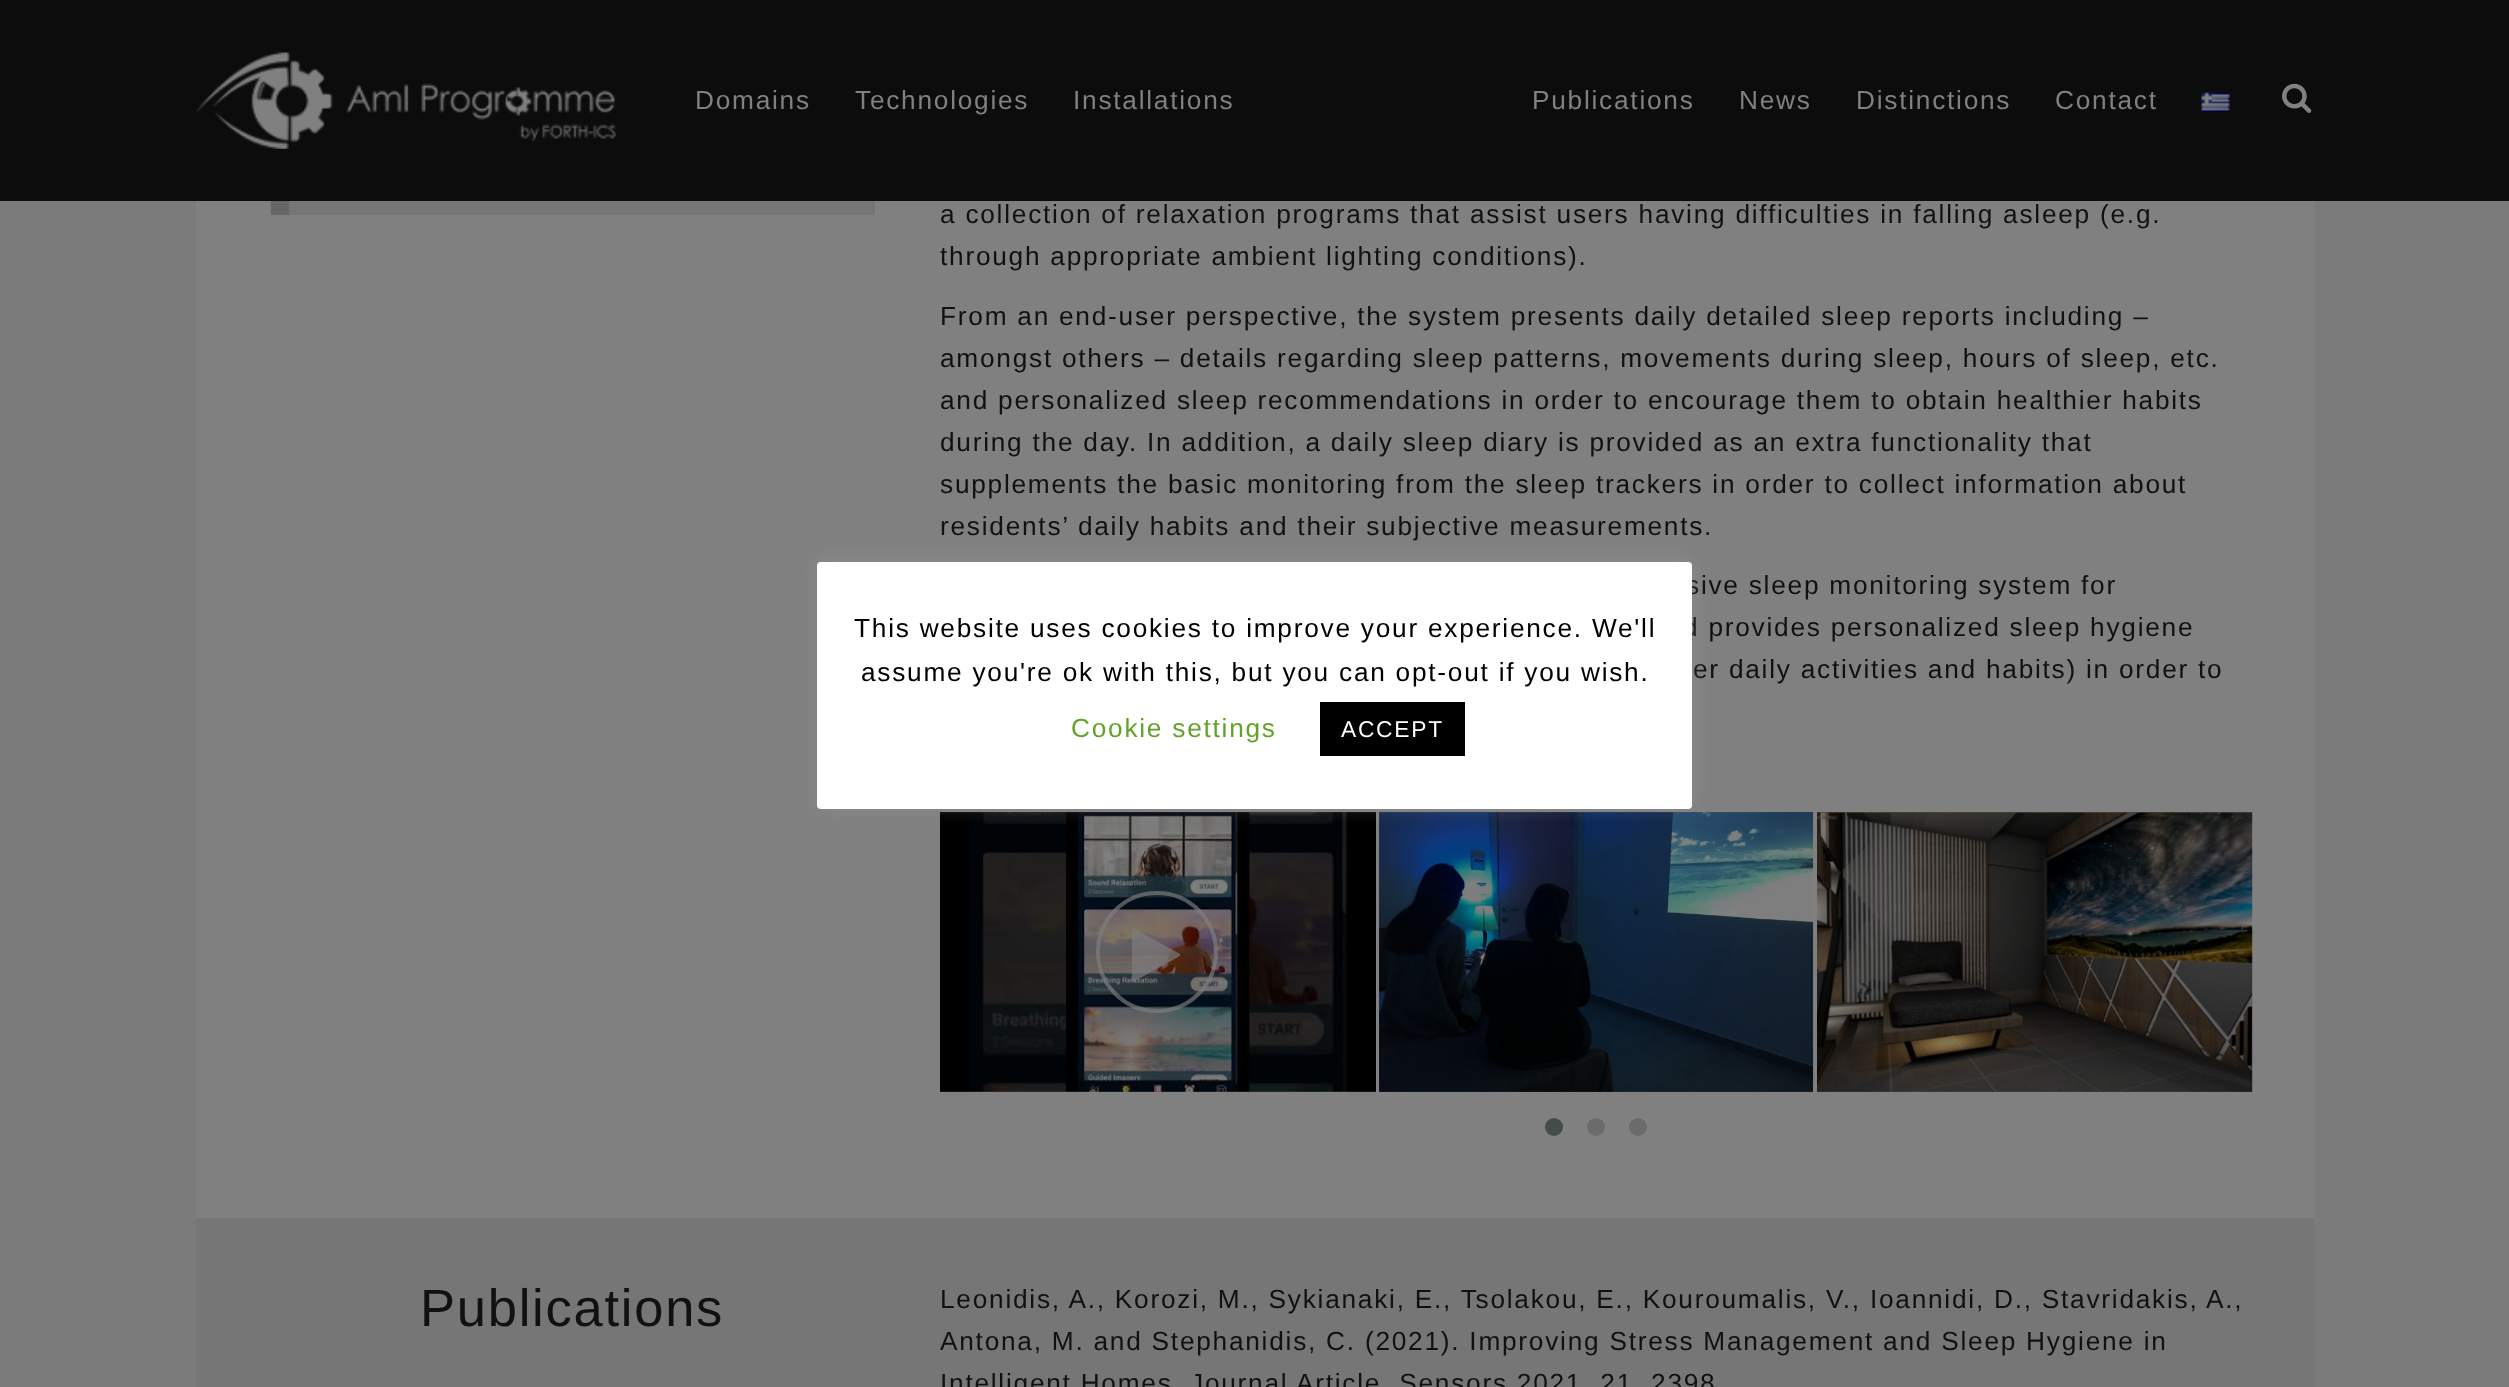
(async () => {
    const canvas = document.querySelector("canvas");
    canvas.width = 2509;
    canvas.height = 1387;
    const context = canvas.getContext("2d");
    context.miterLimit = 4;
    context.fontKerning = "normal";
    function write(s, x, y, font, color) {
        context.font = font;
        context.fillStyle = color;
        context.fillText(s, x, y);
    }
    function block(x, y, w, h, color) {
        context.fillStyle = color;
        context.fillRect(x, y, w, h);
    }
    function card(x, y, w, h, r, color) {
        context.fillStyle = color;
        context.beginPath();
        context.roundRect(x, y, w, h, r);
        context.fill();
    }
    async function photo(src, x, y, w, h) {
        const img = new Image();
        img.src = src;
        await img.decode();
        context.drawImage(img, x, y, w, h);
    }

    block(0, 0, 2509, 1387, "rgb(123, 123, 123)");
    block(0, 0, 2509, 201, "rgb(12, 12, 12)");
    await photo("media/1.png", 196, 52, 420, 97);
    context.letterSpacing = "1.75px";
    write("Domains", 695, 109, "26.25px Arimo", "rgb(128, 128, 128)");
    write("Technologies", 855, 109, "26.25px Arimo", "rgb(128, 128, 128)");
    write("Installations", 1073, 109, "26.25px Arimo", "rgb(128, 128, 128)");
    write("Publications", 1532, 109, "26.25px Arimo", "rgb(128, 128, 128)");
    write("News", 1739, 109, "26.25px Arimo", "rgb(128, 128, 128)");
    write("Distinctions", 1856, 109, "26.25px Arimo", "rgb(128, 128, 128)");
    write("Contact", 2055, 109, "26.25px Arimo", "rgb(128, 128, 128)");
    await photo("media/2.png", 2201, 92, 29, 20);
    await photo("media/3.png", 2282, 83, 30, 30);
    block(196, 201, 2118, 1017, "rgb(128, 128, 128)");
    block(289, 201, 586, 14, "rgb(118, 118, 118)");
    block(271, 201, 18, 14, "rgb(102, 102, 102)");
    write("a collection of relaxation programs that assist users having difficulties in falling asleep (e.g.", 940, 223, "26.25px Arimo", "rgb(17, 17, 17)");
    write("through appropriate ambient lighting conditions).", 940, 265, "26.25px Arimo", "rgb(17, 17, 17)");
    write("From an end-user perspective, the system presents daily detailed sleep reports including –", 940, 325, "26.25px Arimo", "rgb(17, 17, 17)");
    write("amongst others – details regarding sleep patterns, movements during sleep, hours of sleep, etc.", 940, 367, "26.25px Arimo", "rgb(17, 17, 17)");
    write("and personalized sleep recommendations in order to encourage them to obtain healthier habits", 940, 409, "26.25px Arimo", "rgb(17, 17, 17)");
    write("during the day. In addition, a daily sleep diary is provided as an extra functionality that", 940, 451, "26.25px Arimo", "rgb(17, 17, 17)");
    write("supplements the basic monitoring from the sleep trackers in order to collect information about", 940, 493, "26.25px Arimo", "rgb(17, 17, 17)");
    write("residents’ daily habits and their subjective measurements.", 940, 535, "26.25px Arimo", "rgb(17, 17, 17)");
    write("sive sleep monitoring system for", 1686, 594, "26.25px Arimo", "rgb(17, 17, 17)");
    write("d provides personalized sleep hygiene", 1683, 636, "26.25px Arimo", "rgb(17, 17, 17)");
    write("er daily activities and habits) in order to", 1693, 678, "26.25px Arimo", "rgb(17, 17, 17)");
    await photo("media/4.png", 940, 812, 436, 280);
    context.beginPath();
    context.arc(1157, 952, 59, 0, Math.PI * 2);
    context.strokeStyle = "rgba(128, 128, 128, 0.65)";
    context.lineWidth = 4;
    context.stroke();
    context.fillStyle = "rgba(128, 128, 128, 0.65)";
    context.beginPath();
    context.moveTo(1180, 956);
    context.lineTo(1142, 977);
    context.bezierCurveTo(1141, 977, 1134, 983, 1132, 981);
    context.lineTo(1132, 929);
    context.lineTo(1133, 928);
    context.lineTo(1180, 954);
    context.closePath();
    context.fill();
    await photo("media/5.png", 1379, 812, 435, 280);
    await photo("media/6.png", 1817, 812, 436, 280);
    context.fillStyle = "rgb(67, 76, 73)";
    context.beginPath();
    context.arc(1554, 1127, 9, 0, Math.PI * 2);
    context.fill();
    context.fillStyle = "rgb(107, 107, 107)";
    context.beginPath();
    context.arc(1596, 1127, 9, 0, Math.PI * 2);
    context.fill();
    context.beginPath();
    context.arc(1638, 1127, 9, 0, Math.PI * 2);
    context.fill();
    block(196, 1218, 2118, 169, "rgb(118, 118, 118)");
    write("Publications", 420, 1326, "52.5px Arimo", "rgb(17, 17, 17)");
    write("Leonidis, A., Korozi, M., Sykianaki, E., Tsolakou, E., Kouroumalis, V., Ioannidi, D., Stavridakis, A.,", 940, 1308, "26.25px Arimo", "rgb(17, 17, 17)");
    write("Antona, M. and Stephanidis, C. (2021). Improving Stress Management and Sleep Hygiene in", 940, 1350, "26.25px Arimo", "rgb(17, 17, 17)");
    write("Intelligent Homes", 940, 1392, "26.25px Arimo", "rgb(17, 17, 17)");
    write("Journal Article, Sensors 2021, 21, 2398", 1190, 1392, "26.25px Arimo", "rgb(17, 17, 17)");
    context.fillStyle = "rgba(172, 171, 171, 0.3)";
    context.filter = "blur(9px)";
    context.beginPath();
    context.roundRect(817, 560, 875, 247, 4);
    context.fill();
    context.filter = "none";
    card(817, 562, 875, 247, 4, "rgb(255, 255, 255)");
    write("This website uses cookies to improve your experience. We'll", 854, 637, "26.25px Arimo", "rgb(0, 0, 0)");
    write("assume you're ok with this, but you can opt-out if you wish.", 861, 681, "26.25px Arimo", "rgb(0, 0, 0)");
    write("Cookie settings", 1071, 737, "26.25px Arimo", "rgb(98, 163, 41)");
    block(1320, 702, 145, 54, "rgb(0, 0, 0)");
    write("ACCEPT", 1341, 737, "22.75px Arimo", "rgb(255, 255, 255)");
})();
